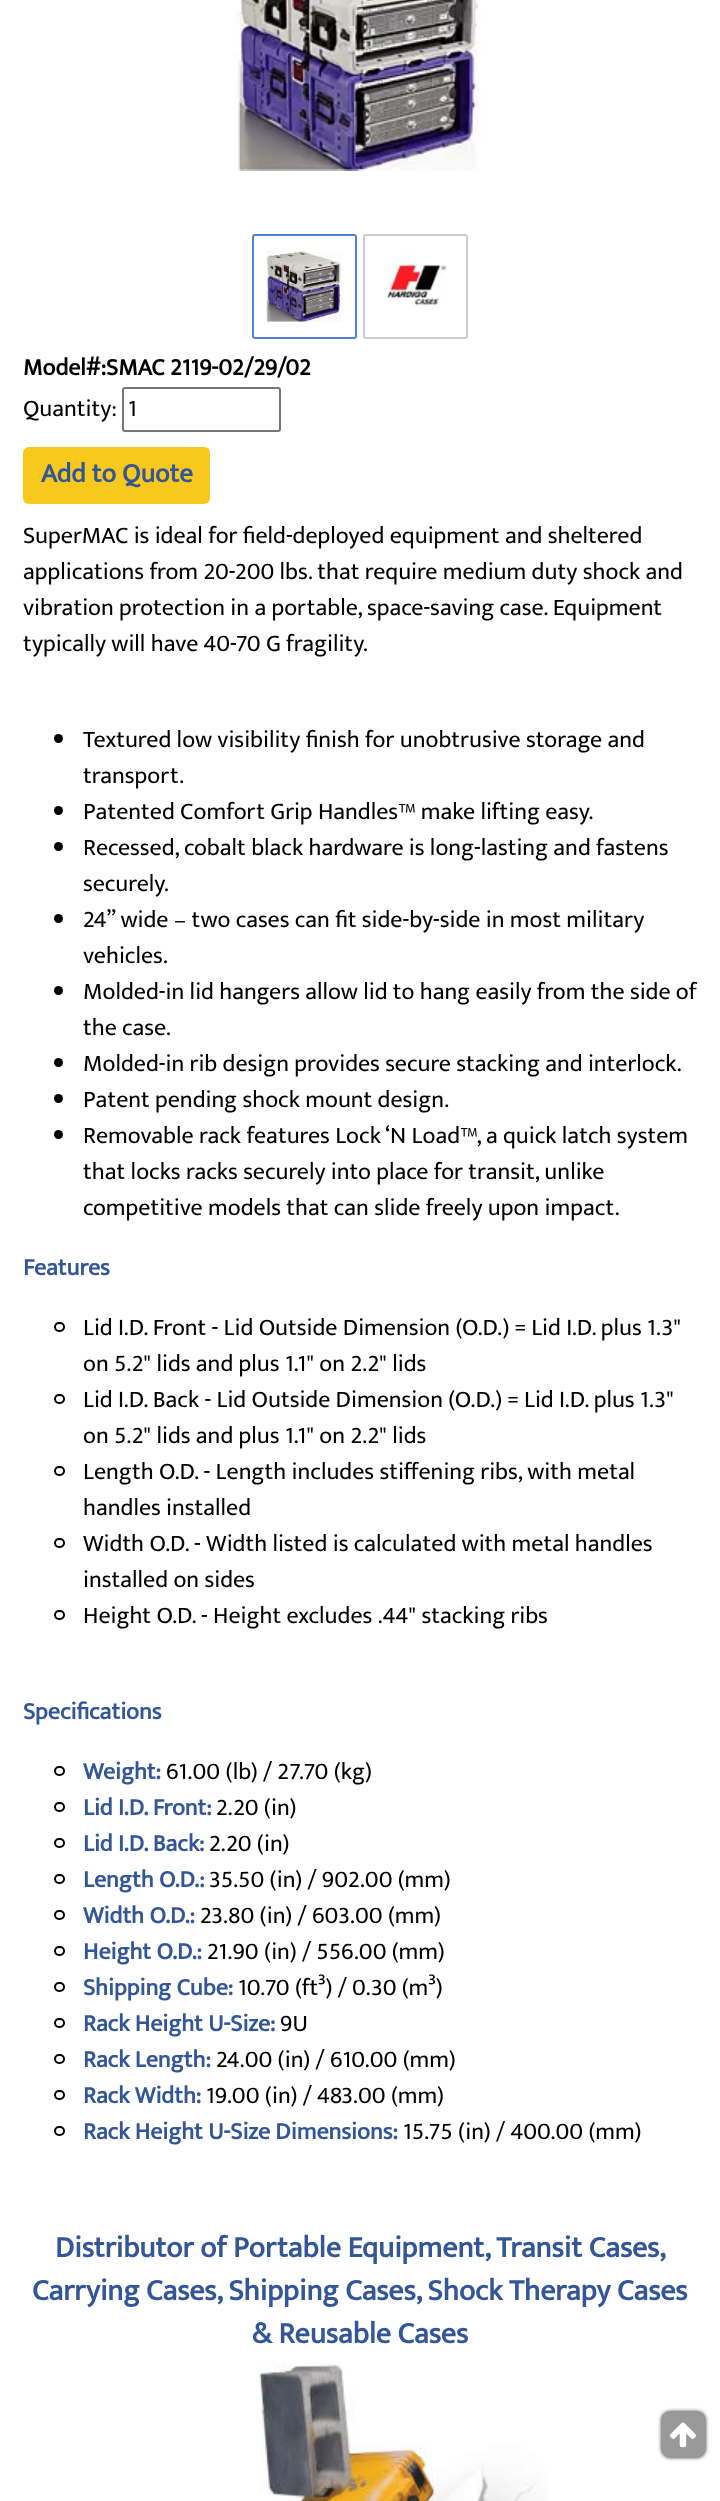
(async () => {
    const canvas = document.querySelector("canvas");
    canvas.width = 720;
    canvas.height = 2501;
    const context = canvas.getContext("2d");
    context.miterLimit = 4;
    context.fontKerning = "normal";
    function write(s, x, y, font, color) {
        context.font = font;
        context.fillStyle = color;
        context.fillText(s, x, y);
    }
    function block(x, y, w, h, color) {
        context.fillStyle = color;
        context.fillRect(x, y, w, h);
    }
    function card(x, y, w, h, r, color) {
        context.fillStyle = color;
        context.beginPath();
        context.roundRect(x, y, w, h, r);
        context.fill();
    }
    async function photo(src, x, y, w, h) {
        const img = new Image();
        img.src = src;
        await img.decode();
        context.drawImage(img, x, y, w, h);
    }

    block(0, 0, 720, 2501, "rgb(255, 255, 255)");
    await photo("media/1.png", 234, 0, 247, 171);
    context.beginPath();
    context.roundRect(253, 235, 103, 103, 2);
    context.strokeStyle = "rgb(82, 128, 221)";
    context.lineWidth = 2;
    context.stroke();
    await photo("media/2.png", 266, 251, 76, 71);
    context.beginPath();
    context.roundRect(364, 235, 103, 103, 2);
    context.strokeStyle = "rgb(204, 204, 204)";
    context.stroke();
    await photo("media/3.png", 387, 255, 60, 51);
    write("Model#:SMAC 2119-02/29/02", 23, 375, "bold 24px Mukta", "rgb(0, 0, 0)");
    write("Quantity:", 23, 416, "24px Mukta", "rgb(0, 0, 0)");
    context.beginPath();
    context.roundRect(123, 388, 157, 43, 2);
    context.strokeStyle = "rgb(118, 118, 118)";
    context.stroke();
    write("1", 128, 416, "24px Mukta", "rgb(0, 0, 0)");
    card(23, 447, 187, 57, 6, "rgb(249, 200, 29)");
    write("Add to Quote", 41, 482, "bold 27px Mukta", "rgb(51, 86, 153)");
    write("SuperMAC is ideal for field-deployed equipment and sheltered", 23, 543, "24px Mukta", "rgb(0, 0, 0)");
    write("applications from 20-200 lbs. that require medium duty shock and", 23, 579, "24px Mukta", "rgb(0, 0, 0)");
    write("vibration protection in a portable, space-saving case. Equipment", 23, 615, "24px Mukta", "rgb(0, 0, 0)");
    write("typically will have 40-70 G fragility.", 23, 651, "24px Mukta", "rgb(0, 0, 0)");
    context.beginPath();
    context.arc(58.5, 738.5, 4.5, 0, Math.PI * 2);
    context.fill();
    write("Textured low visibility finish for unobtrusive storage and", 83, 747, "24px Mukta", "rgb(0, 0, 0)");
    write("transport.", 83, 783, "24px Mukta", "rgb(0, 0, 0)");
    context.beginPath();
    context.arc(58.5, 810.5, 4.5, 0, Math.PI * 2);
    context.fill();
    write("Patented Comfort Grip Handles™ make lifting easy.", 83, 819, "24px Mukta", "rgb(0, 0, 0)");
    context.beginPath();
    context.arc(58.5, 846.5, 4.5, 0, Math.PI * 2);
    context.fill();
    write("Recessed, cobalt black hardware is long-lasting and fastens", 83, 855, "24px Mukta", "rgb(0, 0, 0)");
    write("securely.", 83, 891, "24px Mukta", "rgb(0, 0, 0)");
    context.beginPath();
    context.arc(58.5, 918.5, 4.5, 0, Math.PI * 2);
    context.fill();
    write("24” wide – two cases can fit side-by-side in most military", 83, 927, "24px Mukta", "rgb(0, 0, 0)");
    write("vehicles.", 83, 963, "24px Mukta", "rgb(0, 0, 0)");
    context.beginPath();
    context.arc(58.5, 990.5, 4.5, 0, Math.PI * 2);
    context.fill();
    write("Molded-in lid hangers allow lid to hang easily from the side of", 83, 999, "24px Mukta", "rgb(0, 0, 0)");
    write("the case.", 83, 1035, "24px Mukta", "rgb(0, 0, 0)");
    context.beginPath();
    context.arc(58.5, 1062.5, 4.5, 0, Math.PI * 2);
    context.fill();
    write("Molded-in rib design provides secure stacking and interlock.", 83, 1071, "24px Mukta", "rgb(0, 0, 0)");
    context.beginPath();
    context.arc(58.5, 1098.5, 4.5, 0, Math.PI * 2);
    context.fill();
    write("Patent pending shock mount design.", 83, 1107, "24px Mukta", "rgb(0, 0, 0)");
    context.beginPath();
    context.arc(58.5, 1134.5, 4.5, 0, Math.PI * 2);
    context.fill();
    write("Removable rack features Lock ‘N Load™, a quick latch system", 83, 1143, "24px Mukta", "rgb(0, 0, 0)");
    write("that locks racks securely into place for transit, unlike", 83, 1179, "24px Mukta", "rgb(0, 0, 0)");
    write("competitive models that can slide freely upon impact.", 83, 1215, "24px Mukta", "rgb(0, 0, 0)");
    write("Features", 23, 1275, "bold 24px Mukta", "rgb(51, 86, 153)");
    context.beginPath();
    context.roundRect(55, 1323, 9, 8, 4);
    context.strokeStyle = "rgb(0, 0, 0)";
    context.stroke();
    write("Lid I.D. Front - Lid Outside Dimension (O.D.) = Lid I.D. plus 1.3\"", 83, 1335, "24px Mukta", "rgb(0, 0, 0)");
    write("on 5.2\" lids and plus 1.1\" on 2.2\" lids", 83, 1371, "24px Mukta", "rgb(0, 0, 0)");
    context.beginPath();
    context.roundRect(55, 1395, 9, 8, 4);
    context.stroke();
    write("Lid I.D. Back - Lid Outside Dimension (O.D.) = Lid I.D. plus 1.3\"", 83, 1407, "24px Mukta", "rgb(0, 0, 0)");
    write("on 5.2\" lids and plus 1.1\" on 2.2\" lids", 83, 1443, "24px Mukta", "rgb(0, 0, 0)");
    context.beginPath();
    context.roundRect(55, 1467, 9, 8, 4);
    context.stroke();
    write("Length O.D. - Length includes stiffening ribs, with metal", 83, 1479, "24px Mukta", "rgb(0, 0, 0)");
    write("handles installed", 83, 1515, "24px Mukta", "rgb(0, 0, 0)");
    context.beginPath();
    context.roundRect(55, 1539, 9, 8, 4);
    context.stroke();
    write("Width O.D. - Width listed is calculated with metal handles", 83, 1551, "24px Mukta", "rgb(0, 0, 0)");
    write("installed on sides", 83, 1587, "24px Mukta", "rgb(0, 0, 0)");
    context.beginPath();
    context.roundRect(55, 1611, 9, 8, 4);
    context.stroke();
    write("Height O.D. - Height excludes .44\" stacking ribs", 83, 1623, "24px Mukta", "rgb(0, 0, 0)");
    write("Specifications", 23, 1719, "bold 24px Mukta", "rgb(51, 86, 153)");
    context.beginPath();
    context.roundRect(55, 1767, 9, 8, 4);
    context.stroke();
    write("Weight:", 83, 1779, "bold 24px Mukta", "rgb(51, 86, 153)");
    write("61.00 (lb) / 27.70 (kg)", 166, 1779, "24px Mukta", "rgb(0, 0, 0)");
    context.beginPath();
    context.roundRect(55, 1803, 9, 8, 4);
    context.stroke();
    write("Lid I.D. Front:", 83, 1815, "bold 24px Mukta", "rgb(51, 86, 153)");
    write("2.20 (in)", 216, 1815, "24px Mukta", "rgb(0, 0, 0)");
    context.beginPath();
    context.roundRect(55, 1839, 9, 8, 4);
    context.stroke();
    write("Lid I.D. Back:", 83, 1851, "bold 24px Mukta", "rgb(51, 86, 153)");
    write("2.20 (in)", 209, 1851, "24px Mukta", "rgb(0, 0, 0)");
    context.beginPath();
    context.roundRect(55, 1875, 9, 8, 4);
    context.stroke();
    write("Length O.D.:", 83, 1887, "bold 24px Mukta", "rgb(51, 86, 153)");
    write("35.50 (in) / 902.00 (mm)", 209, 1887, "24px Mukta", "rgb(0, 0, 0)");
    context.beginPath();
    context.roundRect(55, 1911, 9, 8, 4);
    context.stroke();
    write("Width O.D.:", 83, 1923, "bold 24px Mukta", "rgb(51, 86, 153)");
    write("23.80 (in) / 603.00 (mm)", 200, 1923, "24px Mukta", "rgb(0, 0, 0)");
    context.beginPath();
    context.roundRect(55, 1947, 9, 8, 4);
    context.stroke();
    write("Height O.D.:", 83, 1959, "bold 24px Mukta", "rgb(51, 86, 153)");
    write("21.90 (in) / 556.00 (mm)", 207, 1959, "24px Mukta", "rgb(0, 0, 0)");
    context.beginPath();
    context.roundRect(55, 1983, 9, 8, 4);
    context.stroke();
    write("Shipping Cube:", 83, 1995, "bold 24px Mukta", "rgb(51, 86, 153)");
    write("10.70 (ft³) / 0.30 (m³)", 238, 1995, "24px Mukta", "rgb(0, 0, 0)");
    context.beginPath();
    context.roundRect(55, 2019, 9, 8, 4);
    context.stroke();
    write("Rack Height U-Size:", 83, 2031, "bold 24px Mukta", "rgb(51, 86, 153)");
    write("9U", 280, 2031, "24px Mukta", "rgb(0, 0, 0)");
    context.beginPath();
    context.roundRect(55, 2055, 9, 8, 4);
    context.stroke();
    write("Rack Length:", 83, 2067, "bold 24px Mukta", "rgb(51, 86, 153)");
    write("24.00 (in) / 610.00 (mm)", 216, 2067, "24px Mukta", "rgb(0, 0, 0)");
    context.beginPath();
    context.roundRect(55, 2091, 9, 8, 4);
    context.stroke();
    write("Rack Width:", 83, 2103, "bold 24px Mukta", "rgb(51, 86, 153)");
    write("19.00 (in) / 483.00 (mm)", 206, 2103, "24px Mukta", "rgb(0, 0, 0)");
    context.beginPath();
    context.roundRect(55, 2127, 9, 8, 4);
    context.stroke();
    write("Rack Height U-Size Dimensions:", 83, 2139, "bold 24px Mukta", "rgb(51, 86, 153)");
    write("15.75 (in) / 400.00 (mm)", 403, 2139, "24px Mukta", "rgb(0, 0, 0)");
    write("Distributor of Portable Equipment, Transit Cases,", 55, 2257, "bold 30px Mukta", "rgb(51, 86, 153)");
    write("Carrying Cases, Shipping Cases, Shock Therapy Cases", 32, 2300, "bold 30px Mukta", "rgb(51, 86, 153)");
    write("& Reusable Cases", 252, 2343, "bold 30px Mukta", "rgb(51, 86, 153)");
    await photo("media/4.png", 259, 2362, 289, 139);
    context.fillStyle = "rgb(0, 0, 0)";
    context.filter = "blur(2px)";
    context.beginPath();
    context.roundRect(662, 2412, 43, 45, 8);
    context.fill();
    context.filter = "none";
    card(662, 2412, 43, 45, 8, "rgb(153, 153, 153)");
    await photo("media/5.png", 669, 2422, 27, 26);
})();
